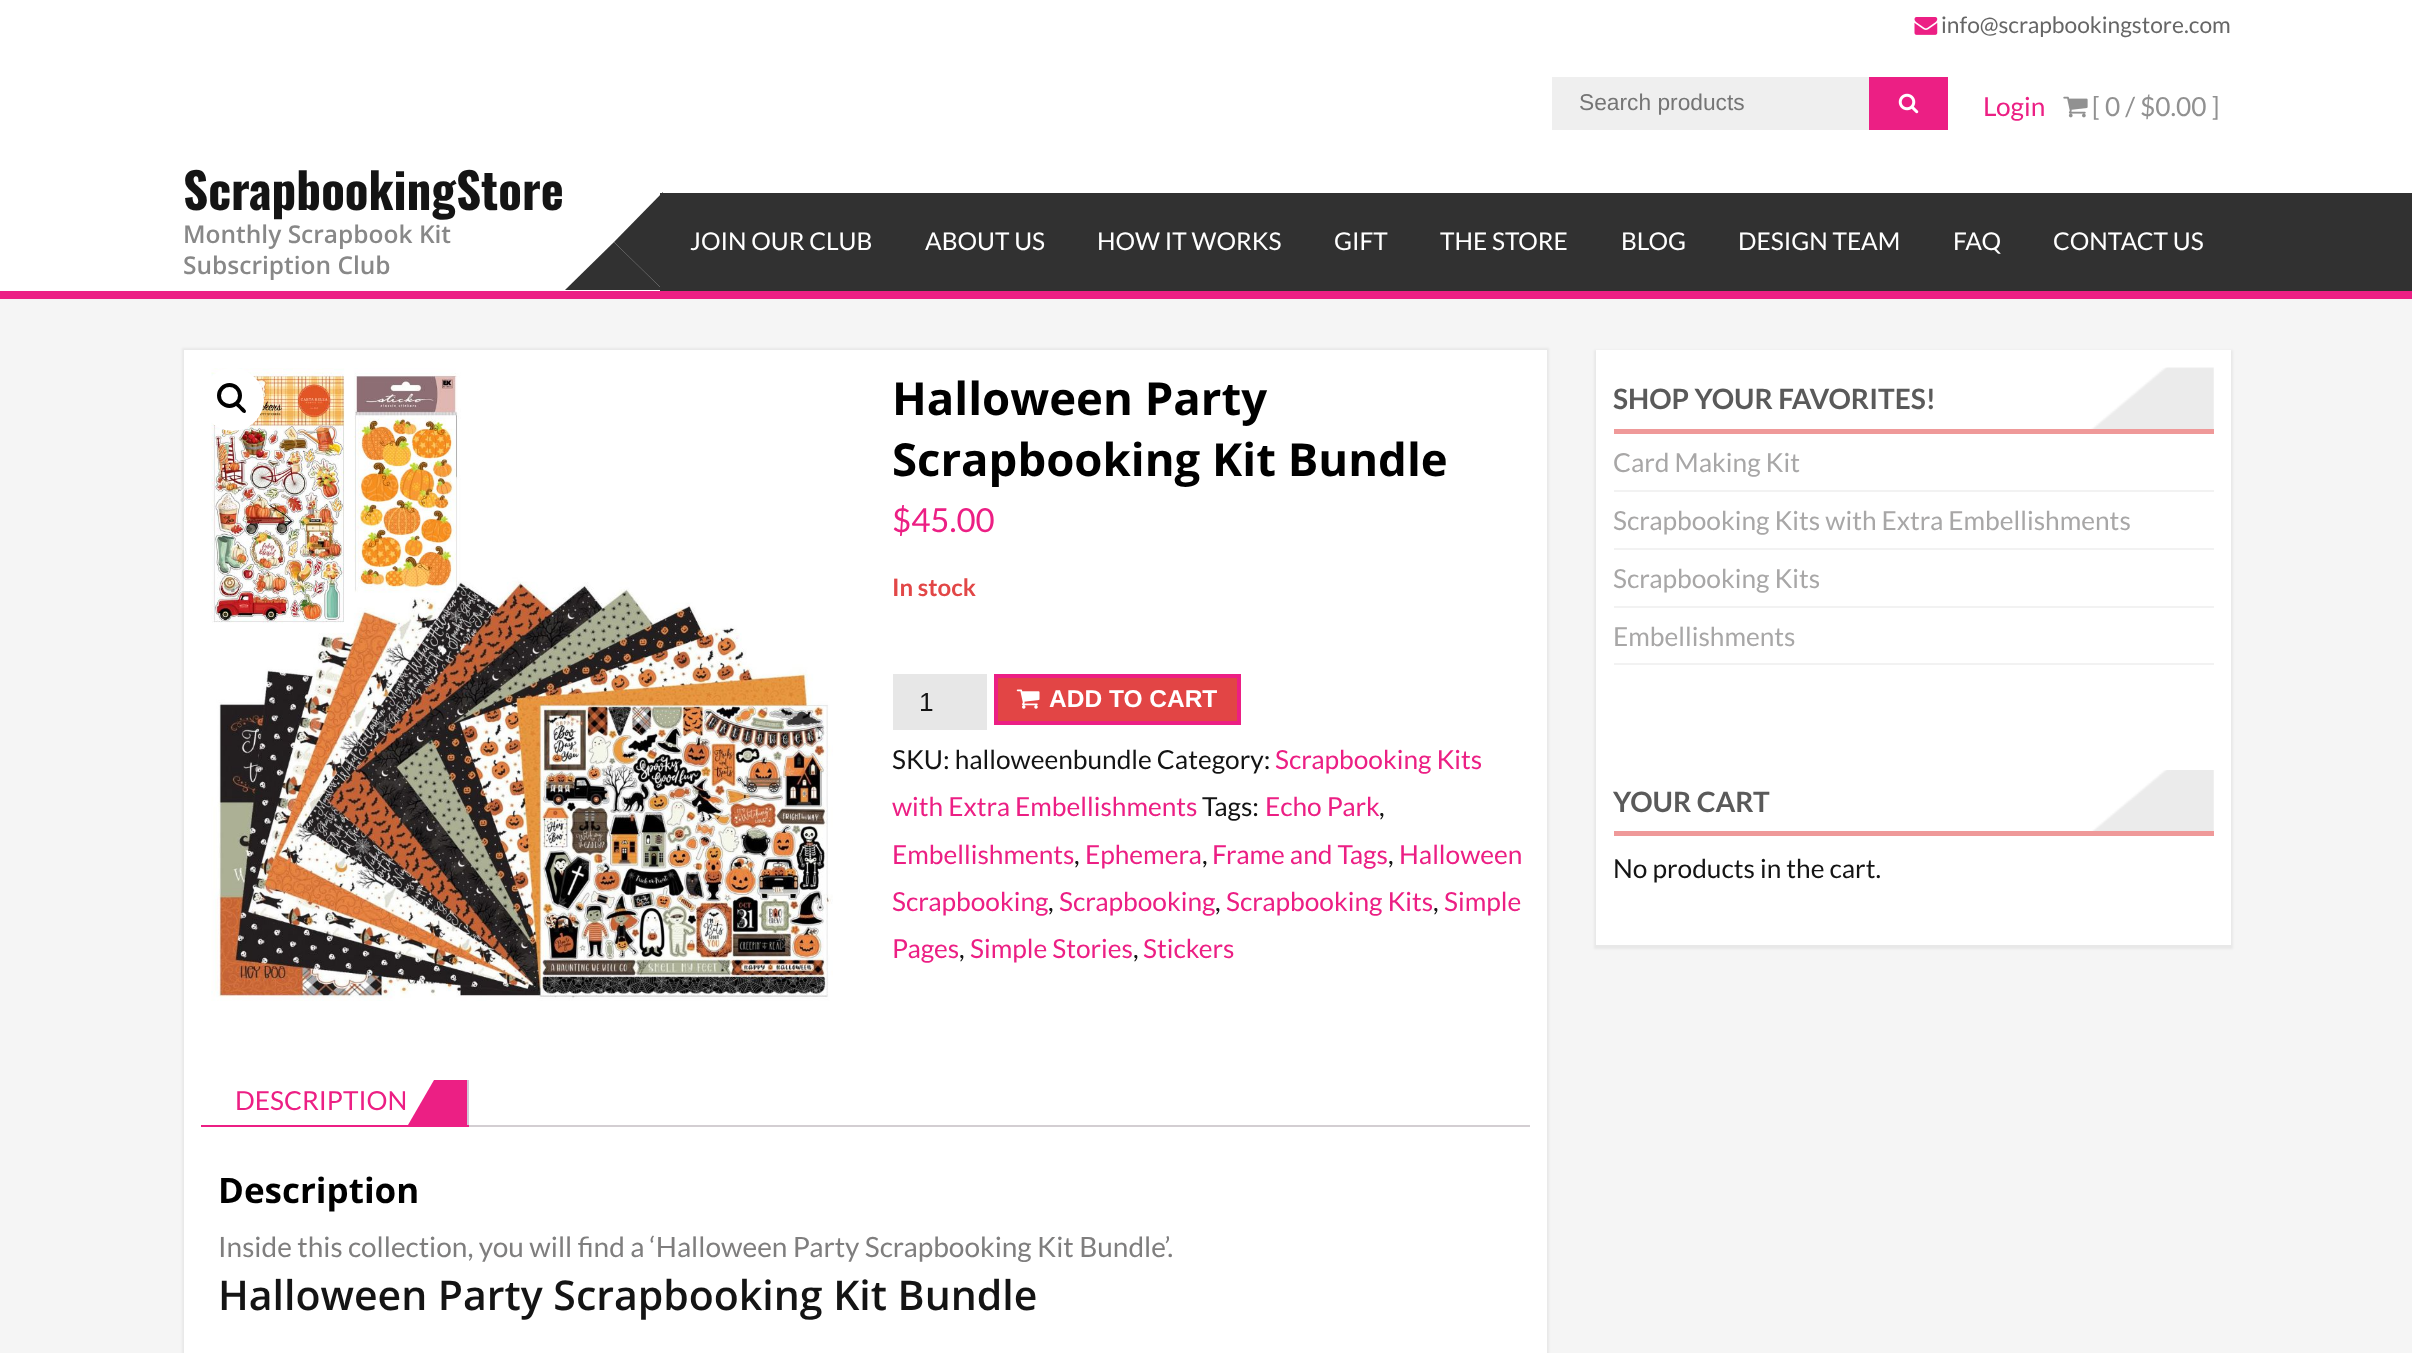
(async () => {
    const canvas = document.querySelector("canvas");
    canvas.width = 2412;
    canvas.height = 1353;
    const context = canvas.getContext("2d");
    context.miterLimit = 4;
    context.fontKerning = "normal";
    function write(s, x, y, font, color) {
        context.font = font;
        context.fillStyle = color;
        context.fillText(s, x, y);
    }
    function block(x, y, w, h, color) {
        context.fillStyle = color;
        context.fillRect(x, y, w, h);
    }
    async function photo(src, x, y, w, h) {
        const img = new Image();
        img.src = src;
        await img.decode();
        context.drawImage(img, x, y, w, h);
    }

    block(0, 0, 2412, 1353, "rgb(255, 255, 255)");
    await photo("media/1.png", 1914, 17, 24, 18);
    write("info@scrapbookingstore.com", 1941, 33, "22.75px Lato", "rgb(102, 102, 102)");
    block(1552, 77, 317, 53, "rgb(239, 239, 239)");
    write("Search products", 1579, 110, "22.75px Liberation Sans", "rgb(117, 117, 117)");
    block(1869, 77, 79, 53, "rgb(236, 31, 132)");
    await photo("media/2.png", 1898, 93, 21, 21);
    write("Login", 1983, 116, "26.25px Lato", "rgb(236, 31, 132)");
    await photo("media/3.png", 2063, 96, 25, 22);
    write("[ 0 / $0.00 ]", 2092, 116, "26.25px Lato", "rgb(145, 145, 145)");
    block(0, 291, 2412, 8, "rgb(236, 31, 132)");
    write("ScrapbookingStore", 183, 210, "bold 49px Oswald", "rgb(20, 20, 20)");
    write("Monthly Scrapbook Kit", 183, 243, "600 24.5px Open Sans", "rgb(136, 136, 136)");
    write("Subscription Club", 183, 274, "600 24.5px Open Sans", "rgb(136, 136, 136)");
    block(660, 193, 1752, 98, "rgb(49, 49, 49)");
    context.beginPath();
    context.moveTo(663, 192);
    context.lineTo(663, 290);
    context.lineTo(614, 242);
    context.closePath();
    context.fill();
    context.beginPath();
    context.moveTo(663, 290);
    context.lineTo(565, 290);
    context.lineTo(614, 242);
    context.closePath();
    context.fill();
    write("JOIN OUR CLUB", 690, 250, "24.5px Lato", "rgb(255, 255, 255)");
    write("ABOUT US", 925, 250, "24.5px Lato", "rgb(255, 255, 255)");
    write("HOW IT WORKS", 1097, 250, "24.5px Lato", "rgb(255, 255, 255)");
    write("GIFT", 1334, 250, "24.5px Lato", "rgb(255, 255, 255)");
    write("THE STORE", 1440, 250, "24.5px Lato", "rgb(255, 255, 255)");
    write("BLOG", 1621, 250, "24.5px Lato", "rgb(255, 255, 255)");
    write("DESIGN TEAM", 1738, 250, "24.5px Lato", "rgb(255, 255, 255)");
    write("FAQ", 1953, 250, "24.5px Lato", "rgb(255, 255, 255)");
    write("CONTACT US", 2053, 250, "24.5px Lato", "rgb(255, 255, 255)");
    block(0, 299, 2412, 1054, "rgb(245, 245, 245)");
    context.fillStyle = "rgba(0, 0, 0, 0.05)";
    context.filter = "blur(1px)";
    context.beginPath();
    context.rect(182, 348, 1367, 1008);
    context.fill();
    context.filter = "none";
    block(184, 350, 1363, 1003, "rgb(255, 255, 255)");
    await photo("media/4.png", 211, 368, 622, 633);
    context.beginPath();
    context.arc(232.5, 399.5, 31.5, 0, Math.PI * 2);
    context.fill();
    context.beginPath();
    context.arc(229.5, 395.5, 10.5, 0, Math.PI * 2);
    context.strokeStyle = "rgb(0, 0, 0)";
    context.lineWidth = 4;
    context.stroke();
    context.fillStyle = "rgb(0, 0, 0)";
    context.beginPath();
    context.moveTo(235.5, 402.5);
    context.bezierCurveTo(237.5, 400.5, 241, 405.5, 242, 406.5);
    context.bezierCurveTo(243, 407.5, 247.5, 410.5, 245.5, 412.5);
    context.bezierCurveTo(243.5, 414.5, 240.5, 410, 239.5, 409);
    context.bezierCurveTo(238.5, 408, 233.5, 404.5, 235.5, 402.5);
    context.closePath();
    context.fill();
    write("Halloween Party", 892, 415, "bold 45.5px Open Sans", "rgb(0, 0, 0)");
    write("Scrapbooking Kit Bundle", 892, 476, "bold 45.5px Open Sans", "rgb(0, 0, 0)");
    write("$45.00", 892, 532, "33px Lato", "rgb(236, 31, 132)");
    write("In stock", 892, 596, "bold 24px Lato", "rgb(226, 71, 71)");
    block(893, 674, 94, 56, "rgb(231, 231, 231)");
    write("1", 919, 711, "26.25px Liberation Sans", "rgb(20, 20, 20)");
    context.fillStyle = "rgb(226, 69, 69)";
    context.beginPath();
    context.rect(996, 676, 243, 47);
    context.fill();
    context.strokeStyle = "rgb(236, 31, 132)";
    context.stroke();
    await photo("media/5.png", 1016, 689, 24, 20);
    write("ADD TO CART", 1049, 707, "bold 24.5px Liberation Sans", "rgb(255, 255, 255)");
    write("SKU: halloweenbundle Category:", 892, 769, "26.25px Lato", "rgb(20, 20, 20)");
    write("Scrapbooking Kits", 1275, 769, "26.25px Lato", "rgb(236, 31, 132)");
    write("with Extra Embellishments", 892, 816, "26.25px Lato", "rgb(236, 31, 132)");
    write("Tags:", 1202, 816, "26.25px Lato", "rgb(20, 20, 20)");
    write("Echo Park", 1265, 816, "26.25px Lato", "rgb(236, 31, 132)");
    write(",", 1379, 816, "26.25px Lato", "rgb(20, 20, 20)");
    write("Embellishments", 892, 864, "26.25px Lato", "rgb(236, 31, 132)");
    write(",", 1074, 864, "26.25px Lato", "rgb(20, 20, 20)");
    write("Ephemera", 1085, 864, "26.25px Lato", "rgb(236, 31, 132)");
    write(",", 1202, 864, "26.25px Lato", "rgb(20, 20, 20)");
    write("Frame and Tags", 1212, 864, "26.25px Lato", "rgb(236, 31, 132)");
    write(",", 1388, 864, "26.25px Lato", "rgb(20, 20, 20)");
    write("Halloween", 1399, 864, "26.25px Lato", "rgb(236, 31, 132)");
    write("Scrapbooking", 892, 911, "26.25px Lato", "rgb(236, 31, 132)");
    write(",", 1048, 911, "26.25px Lato", "rgb(20, 20, 20)");
    write("Scrapbooking", 1059, 911, "26.25px Lato", "rgb(236, 31, 132)");
    write(",", 1215, 911, "26.25px Lato", "rgb(20, 20, 20)");
    write("Scrapbooking Kits", 1226, 911, "26.25px Lato", "rgb(236, 31, 132)");
    write(",", 1433, 911, "26.25px Lato", "rgb(20, 20, 20)");
    write("Simple", 1444, 911, "26.25px Lato", "rgb(236, 31, 132)");
    write("Pages", 892, 958, "26.25px Lato", "rgb(236, 31, 132)");
    write(",", 959, 958, "26.25px Lato", "rgb(20, 20, 20)");
    write("Simple Stories", 970, 958, "26.25px Lato", "rgb(236, 31, 132)");
    write(",", 1133, 958, "26.25px Lato", "rgb(20, 20, 20)");
    write("Stickers", 1143, 958, "26.25px Lato", "rgb(236, 31, 132)");
    block(201, 1125, 268, 2, "rgb(236, 31, 132)");
    write("DESCRIPTION", 235, 1110, "26.25px Lato", "rgb(236, 31, 132)");
    context.beginPath();
    context.moveTo(434, 1125);
    context.lineTo(408, 1125);
    context.lineTo(434, 1080);
    context.closePath();
    context.fill();
    block(434, 1080, 33, 45, "rgb(236, 31, 132)");
    block(467, 1080, 2, 45, "rgb(207, 200, 216)");
    block(469, 1125, 1061, 2, "rgb(211, 206, 210)");
    write("Description", 218, 1203, "bold 35px Open Sans", "rgb(0, 0, 0)");
    write("Inside this collection, you will find a ‘Halloween Party Scrapbooking Kit Bundle’.", 218, 1257, "28px Lato", "rgb(127, 126, 126)");
    write("Halloween Party Scrapbooking Kit Bundle", 218, 1310, "600 41px Open Sans", "rgb(20, 20, 20)");
    context.fillStyle = "rgba(0, 0, 0, 0.05)";
    context.filter = "blur(1px)";
    context.beginPath();
    context.rect(1594, 350, 639, 599);
    context.fill();
    context.filter = "none";
    block(1596, 350, 635, 595, "rgb(255, 255, 255)");
    await photo("media/6.png", 2091, 367, 123, 62);
    block(1614, 429, 600, 5, "rgb(239, 153, 153)");
    write("SHOP YOUR FAVORITES!", 1613, 409, "bold 28px Lato", "rgb(90, 90, 90)");
    block(1614, 490, 600, 2, "rgb(242, 242, 242)");
    write("Card Making Kit", 1613, 472, "26.25px Lato", "rgb(168, 167, 167)");
    block(1614, 548, 600, 2, "rgb(242, 242, 242)");
    write("Scrapbooking Kits with Extra Embellishments", 1613, 530, "26.25px Lato", "rgb(168, 167, 167)");
    block(1614, 606, 600, 2, "rgb(242, 242, 242)");
    write("Scrapbooking Kits", 1613, 588, "26.25px Lato", "rgb(168, 167, 167)");
    block(1614, 663, 600, 2, "rgb(242, 242, 242)");
    write("Embellishments", 1613, 646, "26.25px Lato", "rgb(168, 167, 167)");
    await photo("media/7.png", 2091, 770, 123, 61);
    block(1614, 831, 600, 5, "rgb(239, 153, 153)");
    write("YOUR CART", 1613, 812, "bold 28px Lato", "rgb(90, 90, 90)");
    write("No products in the cart.", 1613, 878, "26.25px Lato", "rgb(20, 20, 20)");
})();
